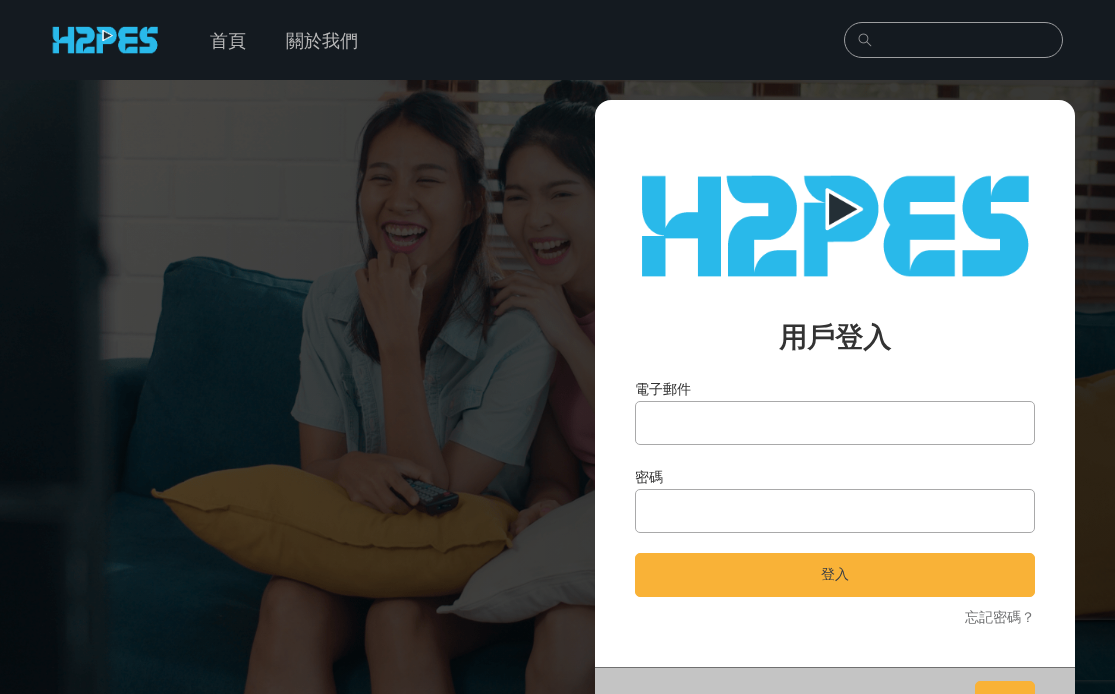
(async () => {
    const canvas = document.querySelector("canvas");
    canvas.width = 1115;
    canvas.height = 694;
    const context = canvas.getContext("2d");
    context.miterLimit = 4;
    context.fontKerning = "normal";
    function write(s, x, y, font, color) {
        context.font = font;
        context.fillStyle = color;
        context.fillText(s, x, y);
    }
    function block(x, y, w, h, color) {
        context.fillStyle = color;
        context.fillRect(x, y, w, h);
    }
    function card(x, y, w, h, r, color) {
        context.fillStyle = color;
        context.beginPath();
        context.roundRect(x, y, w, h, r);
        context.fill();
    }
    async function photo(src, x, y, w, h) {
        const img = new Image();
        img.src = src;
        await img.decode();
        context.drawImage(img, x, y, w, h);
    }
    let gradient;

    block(0, 0, 1115, 694, "rgb(5, 10, 15)");
    block(0, 0, 1115, 80, "rgb(20, 26, 32)");
    await photo("media/1.png", 52, 26, 106, 28);
    write("首頁", 210, 47, "500 18px WenQuanYi Zen Hei", "rgb(183, 183, 183)");
    write("關於我們", 286, 47, "500 18px WenQuanYi Zen Hei", "rgb(183, 183, 183)");
    context.beginPath();
    context.roundRect(844.5, 22.5, 218, 35, 17.5);
    context.strokeStyle = "rgb(157, 158, 160)";
    context.stroke();
    await photo("media/2.png", 858, 33, 14, 14);
    await photo("media/3.png", 0, 80, 1115, 614);
    context.save();
    context.beginPath();
    context.moveTo(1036, 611);
    context.lineTo(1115, 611);
    context.lineTo(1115, 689);
    context.lineTo(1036, 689);
    context.closePath();
    context.moveTo(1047, 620);
    context.lineTo(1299, 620);
    context.bezierCurveTo(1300, 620, 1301, 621, 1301, 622);
    context.lineTo(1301, 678);
    context.bezierCurveTo(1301, 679, 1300, 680, 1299, 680);
    context.lineTo(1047, 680);
    context.bezierCurveTo(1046, 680, 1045, 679, 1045, 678);
    context.lineTo(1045, 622);
    context.bezierCurveTo(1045, 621, 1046, 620, 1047, 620);
    context.closePath();
    context.clip("evenodd");
    context.fillStyle = "rgb(77, 77, 77)";
    context.filter = "blur(2.5px)";
    context.beginPath();
    context.roundRect(1045, 620, 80, 60, 2);
    context.fill();
    context.filter = "none";
    context.restore();
    gradient = context.createLinearGradient(0, 379, 1115, 379);
    gradient.addColorStop(0, "rgba(0, 0, 0, 0)");
    gradient.addColorStop(0.9, "rgba(0, 0, 0, 0.4)");
    gradient.addColorStop(1, "rgba(0, 0, 0, 0.4)");
    context.fillStyle = gradient;
    context.fillRect(105, 80, 1010, 614);
    card(595, 100, 480, 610, 16, "rgb(255, 255, 255)");
    await photo("media/4.png", 642, 175, 387, 102);
    write("用戶登入", 779, 347, "bold 28px WenQuanYi Zen Hei", "rgb(51, 51, 51)");
    write("電子郵件", 635, 394, "500 14px WenQuanYi Zen Hei", "rgb(51, 51, 51)");
    context.beginPath();
    context.roundRect(635.5, 401.5, 399, 43, 4.5);
    context.strokeStyle = "rgb(169, 169, 170)";
    context.stroke();
    write("密碼", 635, 482, "500 14px WenQuanYi Zen Hei", "rgb(51, 51, 51)");
    context.beginPath();
    context.roundRect(635.5, 489.5, 399, 43, 4.5);
    context.stroke();
    context.fillStyle = "rgb(249, 178, 55)";
    context.beginPath();
    context.roundRect(635.5, 553.5, 399, 43, 4.5);
    context.fill();
    context.strokeStyle = "rgb(249, 178, 55)";
    context.stroke();
    write("登入", 821, 579, "500 14px WenQuanYi Zen Hei", "rgb(55, 60, 68)");
    write("忘記密碼？", 965, 622, "500 14px WenQuanYi Zen Hei", "rgb(113, 114, 115)");
    block(595, 668, 480, 26, "rgb(196, 196, 196)");
    block(595, 667, 480, 1, "rgb(112, 112, 112)");
    context.fillStyle = "rgb(249, 178, 55)";
    context.beginPath();
    context.roundRect(975.5, 681.5, 59, 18, 4.5);
    context.fill();
    context.stroke();
})();
